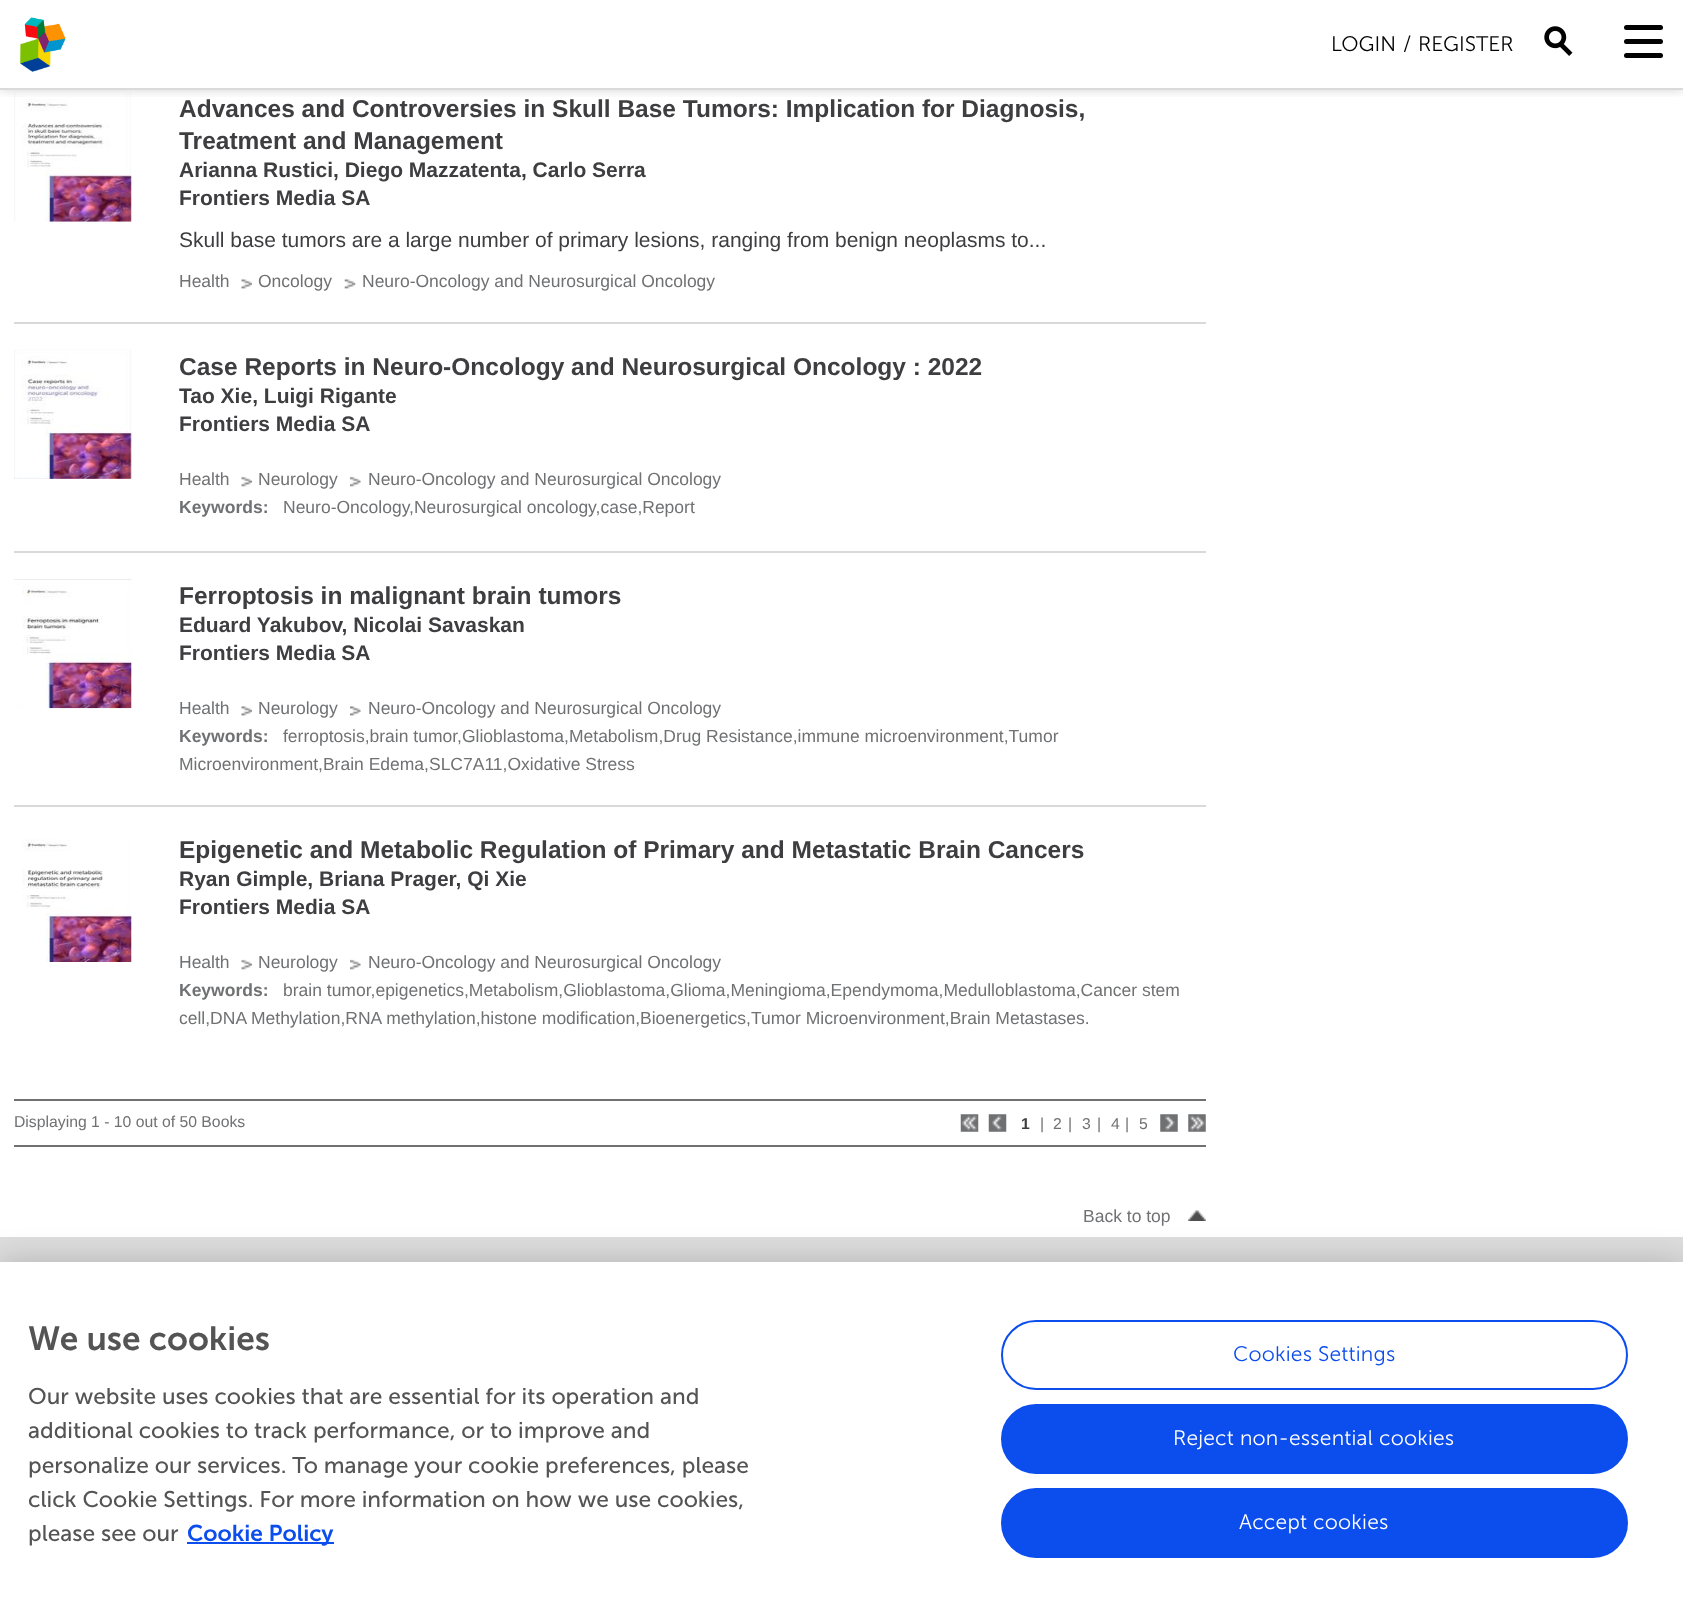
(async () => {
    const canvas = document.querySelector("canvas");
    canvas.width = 1683;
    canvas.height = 1605;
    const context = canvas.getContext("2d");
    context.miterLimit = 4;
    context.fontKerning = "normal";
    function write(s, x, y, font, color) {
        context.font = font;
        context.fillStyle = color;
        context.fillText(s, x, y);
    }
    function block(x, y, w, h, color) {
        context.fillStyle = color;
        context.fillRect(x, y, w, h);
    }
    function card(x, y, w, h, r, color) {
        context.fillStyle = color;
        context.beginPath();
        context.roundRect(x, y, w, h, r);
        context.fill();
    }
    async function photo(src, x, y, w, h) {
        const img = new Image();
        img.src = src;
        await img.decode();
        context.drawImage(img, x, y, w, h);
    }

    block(0, 0, 1683, 1605, "rgb(255, 255, 255)");
    await photo("media/3.png", 14, 93, 118, 129);
    context.save();
    context.beginPath();
    context.rect(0, 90, 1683, 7);
    context.clip();
    context.fillStyle = "rgba(0, 0, 0, 0.2)";
    context.filter = "blur(6px)";
    context.beginPath();
    context.rect(0, 0, 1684, 89);
    context.fill();
    context.filter = "none";
    context.restore();
    block(0, 88, 1683, 2, "rgb(218, 218, 218)");
    await photo("media/1.png", 20, 17, 46, 55);
    write("LOGIN", 1331, 51, "300 21px 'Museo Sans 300'", "rgb(2, 2, 2)");
    write("/", 1403, 51, "300 21px 'Museo Sans 300'", "rgb(2, 2, 2)");
    write("REGISTER", 1418, 51, "300 21px 'Museo Sans 300'", "rgb(2, 2, 2)");
    await photo("media/2.png", 1544, 26, 29, 30);
    card(1624, 25, 39, 5, 2.5, "rgb(2, 2, 2)");
    card(1624, 39, 39, 5, 2.5, "rgb(2, 2, 2)");
    card(1624, 53, 39, 5, 2.5, "rgb(2, 2, 2)");
    write("Advances and Controversies in Skull Base Tumors: Implication for Diagnosis,", 179, 117, "bold 24.5px Liberation Sans", "rgb(62, 61, 64)");
    write("Treatment and Management", 179, 149, "bold 24.5px Liberation Sans", "rgb(62, 61, 64)");
    write("Arianna Rustici, Diego Mazzatenta, Carlo Serra", 179, 177, "bold 21px Liberation Sans", "rgb(62, 61, 64)");
    write("Frontiers Media SA", 179, 205, "bold 21px Liberation Sans", "rgb(62, 61, 64)");
    write("Skull base tumors are a large number of primary lesions, ranging from benign neoplasms to...", 179, 247, "21px Liberation Sans", "rgb(62, 61, 64)");
    write("Health", 179, 287, "17.5px Liberation Sans", "rgb(112, 113, 115)");
    await photo("media/4.png", 241, 279, 11, 10);
    write("Oncology", 258, 287, "17.5px Liberation Sans", "rgb(112, 113, 115)");
    await photo("media/5.png", 344, 279, 12, 10);
    write("Neuro-Oncology and Neurosurgical Oncology", 362, 287, "17.5px Liberation Sans", "rgb(112, 113, 115)");
    block(14, 322, 1192, 2, "rgb(217, 217, 217)");
    await photo("media/6.png", 14, 349, 118, 130);
    write("Case Reports in Neuro-Oncology and Neurosurgical Oncology : 2022", 179, 375, "bold 24.5px Liberation Sans", "rgb(62, 61, 64)");
    write("Tao Xie, Luigi Rigante", 179, 403, "bold 21px Liberation Sans", "rgb(62, 61, 64)");
    write("Frontiers Media SA", 179, 431, "bold 21px Liberation Sans", "rgb(62, 61, 64)");
    write("Health", 179, 485, "17.5px Liberation Sans", "rgb(112, 113, 115)");
    await photo("media/7.png", 241, 476, 11, 11);
    write("Neurology", 258, 485, "17.5px Liberation Sans", "rgb(112, 113, 115)");
    await photo("media/8.png", 350, 476, 11, 11);
    write("Neuro-Oncology and Neurosurgical Oncology", 368, 485, "17.5px Liberation Sans", "rgb(112, 113, 115)");
    write("Keywords:", 179, 513, "bold 17.5px Liberation Sans", "rgb(112, 113, 115)");
    write("Neuro-Oncology,Neurosurgical oncology,case,Report", 283, 513, "17.5px Liberation Sans", "rgb(112, 113, 115)");
    block(14, 551, 1192, 2, "rgb(217, 217, 217)");
    await photo("media/9.png", 14, 579, 118, 130);
    write("Ferroptosis in malignant brain tumors", 179, 604, "bold 24.5px Liberation Sans", "rgb(62, 61, 64)");
    write("Eduard Yakubov, Nicolai Savaskan", 179, 632, "bold 21px Liberation Sans", "rgb(62, 61, 64)");
    write("Frontiers Media SA", 179, 660, "bold 21px Liberation Sans", "rgb(62, 61, 64)");
    write("Health", 179, 714, "17.5px Liberation Sans", "rgb(112, 113, 115)");
    await photo("media/4.png", 241, 706, 11, 10);
    write("Neurology", 258, 714, "17.5px Liberation Sans", "rgb(112, 113, 115)");
    await photo("media/10.png", 350, 706, 11, 10);
    write("Neuro-Oncology and Neurosurgical Oncology", 368, 714, "17.5px Liberation Sans", "rgb(112, 113, 115)");
    write("Keywords:", 179, 742, "bold 17.5px Liberation Sans", "rgb(112, 113, 115)");
    write("ferroptosis,brain tumor,Glioblastoma,Metabolism,Drug Resistance,immune microenvironment,Tumor", 283, 742, "17.5px Liberation Sans", "rgb(112, 113, 115)");
    write("Microenvironment,Brain Edema,SLC7A11,Oxidative Stress", 179, 770, "17.5px Liberation Sans", "rgb(112, 113, 115)");
    block(14, 805, 1192, 2, "rgb(217, 217, 217)");
    await photo("media/11.png", 22, 839, 110, 123);
    write("Epigenetic and Metabolic Regulation of Primary and Metastatic Brain Cancers", 179, 858, "bold 24.5px Liberation Sans", "rgb(62, 61, 64)");
    write("Ryan Gimple, Briana Prager, Qi Xie", 179, 886, "bold 21px Liberation Sans", "rgb(62, 61, 64)");
    write("Frontiers Media SA", 179, 914, "bold 21px Liberation Sans", "rgb(62, 61, 64)");
    write("Health", 179, 968, "17.5px Liberation Sans", "rgb(112, 113, 115)");
    await photo("media/7.png", 241, 959, 11, 11);
    write("Neurology", 258, 968, "17.5px Liberation Sans", "rgb(112, 113, 115)");
    await photo("media/8.png", 350, 959, 11, 11);
    write("Neuro-Oncology and Neurosurgical Oncology", 368, 968, "17.5px Liberation Sans", "rgb(112, 113, 115)");
    write("Keywords:", 179, 996, "bold 17.5px Liberation Sans", "rgb(112, 113, 115)");
    write("brain tumor,epigenetics,Metabolism,Glioblastoma,Glioma,Meningioma,Ependymoma,Medulloblastoma,Cancer stem", 283, 996, "17.5px Liberation Sans", "rgb(112, 113, 115)");
    write("cell,DNA Methylation,RNA methylation,histone modification,Bioenergetics,Tumor Microenvironment,Brain Metastases.", 179, 1024, "17.5px Liberation Sans", "rgb(112, 113, 115)");
    block(14, 1099, 1192, 2, "rgb(112, 113, 115)");
    block(14, 1145, 1192, 2, "rgb(112, 113, 115)");
    write("Displaying 1 - 10 out of 50 Books", 14, 1127, "15.75px Liberation Sans", "rgb(112, 113, 115)");
    await photo("media/12.png", 960, 1114, 19, 18);
    await photo("media/13.png", 988, 1114, 19, 18);
    write("1", 1021, 1129, "bold 15.75px Liberation Sans", "rgb(62, 61, 64)");
    write("|", 1040, 1129, "15.75px Liberation Sans", "rgb(112, 113, 115)");
    write("2", 1053, 1129, "15.75px Liberation Sans", "rgb(112, 113, 115)");
    write("|", 1068, 1129, "15.75px Liberation Sans", "rgb(112, 113, 115)");
    write("3", 1082, 1129, "15.75px Liberation Sans", "rgb(112, 113, 115)");
    write("|", 1097, 1129, "15.75px Liberation Sans", "rgb(112, 113, 115)");
    write("4", 1111, 1129, "15.75px Liberation Sans", "rgb(112, 113, 115)");
    write("|", 1125, 1129, "15.75px Liberation Sans", "rgb(112, 113, 115)");
    write("5", 1139, 1129, "15.75px Liberation Sans", "rgb(112, 113, 115)");
    await photo("media/14.png", 1160, 1114, 18, 18);
    await photo("media/15.png", 1188, 1114, 18, 18);
    write("Back to top", 1083, 1222, "17.5px Liberation Sans", "rgb(112, 113, 115)");
    await photo("media/16.png", 1188, 1210, 18, 11);
    block(0, 1237, 1683, 25, "rgb(221, 221, 221)");
    context.fillStyle = "rgba(0, 0, 0, 0.2)";
    context.filter = "blur(16px)";
    context.beginPath();
    context.rect(0, 1262, 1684, 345);
    context.fill();
    context.filter = "none";
    block(0, 1262, 1683, 343, "rgb(255, 255, 255)");
    write("We use cookies", 28, 1350, "600 33.5px 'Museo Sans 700'", "rgb(84, 84, 84)");
    write("Our website uses cookies that are essential for its operation and", 28, 1404, "22.75px 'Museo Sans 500'", "rgb(84, 84, 84)");
    write("additional cookies to track performance, or to improve and", 28, 1438, "22.75px 'Museo Sans 500'", "rgb(84, 84, 84)");
    write("personalize our services. To manage your cookie preferences, please", 28, 1473, "22.75px 'Museo Sans 500'", "rgb(84, 84, 84)");
    write("click Cookie Settings. For more information on how we use cookies,", 28, 1507, "22.75px 'Museo Sans 500'", "rgb(84, 84, 84)");
    write("please see our", 28, 1541, "22.75px 'Museo Sans 500'", "rgb(84, 84, 84)");
    block(187, 1542, 147, 2, "rgb(12, 77, 237)");
    write("Cookie Policy", 187, 1541, "600 22.75px 'Museo Sans 700'", "rgb(12, 77, 237)");
    context.beginPath();
    context.roundRect(1002, 1321, 625, 68, 34);
    context.strokeStyle = "rgb(12, 77, 237)";
    context.lineWidth = 2;
    context.stroke();
    context.letterSpacing = "0.2px";
    write("Cookies Settings", 1233, 1361, "300 21px 'Museo Sans 300'", "rgb(12, 77, 237)");
    context.beginPath();
    context.roundRect(1002, 1405, 625, 68, 34);
    context.fill();
    context.stroke();
    write("Reject non-essential cookies", 1173, 1445, "300 21px 'Museo Sans 300'", "rgb(255, 255, 255)");
    context.fillStyle = "rgb(12, 77, 237)";
    context.beginPath();
    context.roundRect(1002, 1489, 625, 68, 34);
    context.fill();
    context.stroke();
    write("Accept cookies", 1239, 1529, "300 21px 'Museo Sans 300'", "rgb(255, 255, 255)");
})();
